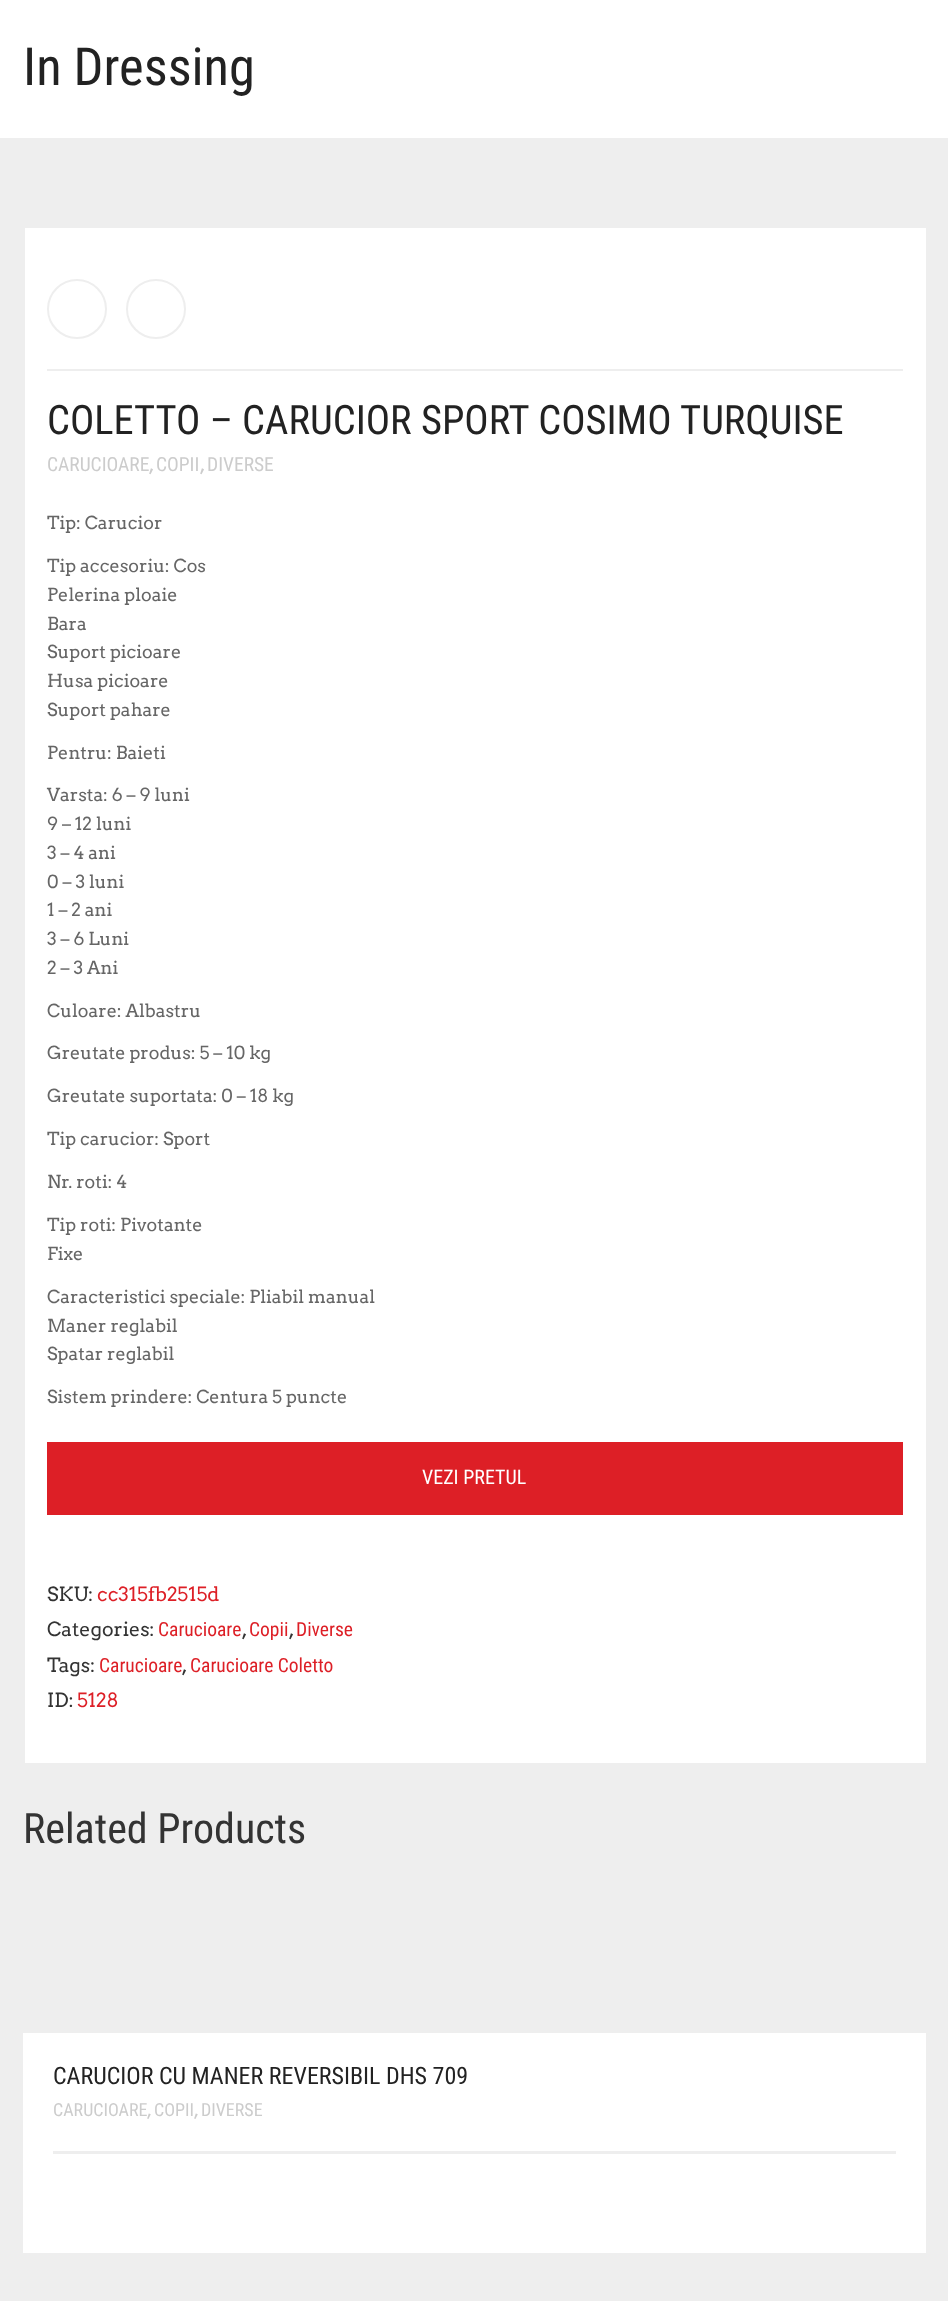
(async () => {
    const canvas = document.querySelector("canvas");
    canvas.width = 948;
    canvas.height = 2301;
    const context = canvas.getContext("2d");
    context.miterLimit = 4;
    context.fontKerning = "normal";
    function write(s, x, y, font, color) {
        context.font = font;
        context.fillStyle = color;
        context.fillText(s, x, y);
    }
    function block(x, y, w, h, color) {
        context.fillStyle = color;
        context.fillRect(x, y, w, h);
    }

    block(0, 0, 948, 2301, "rgb(238, 238, 238)");
    block(0, 0, 948, 138, "rgb(255, 255, 255)");
    write("In Dressing", 23, 85, "52.5px Roboto Condensed", "rgb(34, 34, 34)");
    block(25, 228, 901, 1535, "rgb(255, 255, 255)");
    block(47, 369, 856, 2, "rgb(238, 238, 238)");
    context.beginPath();
    context.arc(77, 309, 29, 0, Math.PI * 2);
    context.strokeStyle = "rgb(238, 238, 238)";
    context.lineWidth = 2;
    context.stroke();
    context.beginPath();
    context.arc(156, 309, 29, 0, Math.PI * 2);
    context.stroke();
    write("COLETTO – CARUCIOR SPORT COSIMO TURQUISE", 47, 434, "40.5px Roboto Condensed", "rgb(34, 34, 34)");
    write("CARUCIOARE", 47, 471, "19.5px Roboto Condensed", "rgb(204, 204, 204)");
    write(",", 149, 471, "19.5px Arvo", "rgb(204, 204, 204)");
    write("COPII", 156, 471, "19.5px Roboto Condensed", "rgb(204, 204, 204)");
    write(",", 200, 471, "19.5px Arvo", "rgb(204, 204, 204)");
    write("DIVERSE", 207, 471, "19.5px Roboto Condensed", "rgb(204, 204, 204)");
    write("Tip: Carucior", 47, 529, "17.9px Arvo", "rgb(102, 102, 102)");
    write("Tip accesoriu: Cos", 47, 572, "17.9px Arvo", "rgb(102, 102, 102)");
    write("Pelerina ploaie", 47, 601, "17.9px Arvo", "rgb(102, 102, 102)");
    write("Bara", 47, 630, "17.9px Arvo", "rgb(102, 102, 102)");
    write("Suport picioare", 47, 658, "17.9px Arvo", "rgb(102, 102, 102)");
    write("Husa picioare", 47, 687, "17.9px Arvo", "rgb(102, 102, 102)");
    write("Suport pahare", 47, 716, "17.9px Arvo", "rgb(102, 102, 102)");
    write("Pentru: Baieti", 47, 759, "17.9px Arvo", "rgb(102, 102, 102)");
    write("Varsta: 6 – 9 luni", 47, 801, "17.9px Arvo", "rgb(102, 102, 102)");
    write("9 – 12 luni", 47, 830, "17.9px Arvo", "rgb(102, 102, 102)");
    write("3 – 4 ani", 47, 859, "17.9px Arvo", "rgb(102, 102, 102)");
    write("0 – 3 luni", 47, 888, "17.9px Arvo", "rgb(102, 102, 102)");
    write("1 – 2 ani", 47, 916, "17.9px Arvo", "rgb(102, 102, 102)");
    write("3 – 6 Luni", 47, 945, "17.9px Arvo", "rgb(102, 102, 102)");
    write("2 – 3 Ani", 47, 974, "17.9px Arvo", "rgb(102, 102, 102)");
    write("Culoare: Albastru", 47, 1017, "17.9px Arvo", "rgb(102, 102, 102)");
    write("Greutate produs: 5 – 10 kg", 47, 1059, "17.9px Arvo", "rgb(102, 102, 102)");
    write("Greutate suportata: 0 – 18 kg", 47, 1102, "17.9px Arvo", "rgb(102, 102, 102)");
    write("Tip carucior: Sport", 47, 1145, "17.9px Arvo", "rgb(102, 102, 102)");
    write("Nr. roti: 4", 47, 1188, "17.9px Arvo", "rgb(102, 102, 102)");
    write("Tip roti: Pivotante", 47, 1231, "17.9px Arvo", "rgb(102, 102, 102)");
    write("Fixe", 47, 1260, "17.9px Arvo", "rgb(102, 102, 102)");
    write("Caracteristici speciale: Pliabil manual", 47, 1303, "17.9px Arvo", "rgb(102, 102, 102)");
    write("Maner reglabil", 47, 1332, "17.9px Arvo", "rgb(102, 102, 102)");
    write("Spatar reglabil", 47, 1360, "17.9px Arvo", "rgb(102, 102, 102)");
    write("Sistem prindere: Centura 5 puncte", 47, 1403, "17.9px Arvo", "rgb(102, 102, 102)");
    block(47, 1442, 856, 73, "rgb(221, 31, 38)");
    write("VEZI PRETUL", 422, 1484, "20px Roboto Condensed", "rgb(255, 255, 255)");
    write("SKU:", 47, 1601, "19.5px Arvo", "rgb(51, 51, 51)");
    write("cc315fb2515d", 97, 1601, "19.5px Arvo", "rgb(221, 31, 38)");
    write("Categories:", 47, 1636, "19.5px Arvo", "rgb(51, 51, 51)");
    write("Carucioare", 158, 1636, "19.5px Roboto Condensed", "rgb(221, 31, 38)");
    write(",", 242, 1636, "19.5px Arvo", "rgb(51, 51, 51)");
    write("Copii", 249, 1636, "19.5px Roboto Condensed", "rgb(221, 31, 38)");
    write(",", 289, 1636, "19.5px Arvo", "rgb(51, 51, 51)");
    write("Diverse", 296, 1636, "19.5px Roboto Condensed", "rgb(221, 31, 38)");
    write("Tags:", 47, 1672, "19.5px Arvo", "rgb(51, 51, 51)");
    write("Carucioare", 99, 1672, "19.5px Roboto Condensed", "rgb(221, 31, 38)");
    write(",", 182, 1672, "19.5px Arvo", "rgb(51, 51, 51)");
    write("Carucioare Coletto", 190, 1672, "19.5px Roboto Condensed", "rgb(221, 31, 38)");
    write("ID:", 47, 1707, "19.5px Arvo", "rgb(51, 51, 51)");
    write("5128", 77, 1707, "19.5px Arvo", "rgb(221, 31, 38)");
    write("Related Products", 23, 1843, "42px Roboto Condensed", "rgb(51, 51, 51)");
    block(23, 2033, 903, 220, "rgb(255, 255, 255)");
    write("CARUCIOR CU MANER REVERSIBIL DHS 709", 53, 2084, "24px Roboto Condensed", "rgb(34, 34, 34)");
    write("CARUCIOARE", 53, 2116, "18px Roboto Condensed", "rgb(204, 204, 204)");
    write(",", 147, 2116, "18px Arvo", "rgb(204, 204, 204)");
    write("COPII", 154, 2116, "18px Roboto Condensed", "rgb(204, 204, 204)");
    write(",", 194, 2116, "18px Arvo", "rgb(204, 204, 204)");
    write("DIVERSE", 201, 2116, "18px Roboto Condensed", "rgb(204, 204, 204)");
    block(53, 2151, 843, 3, "rgb(238, 238, 238)");
})();
